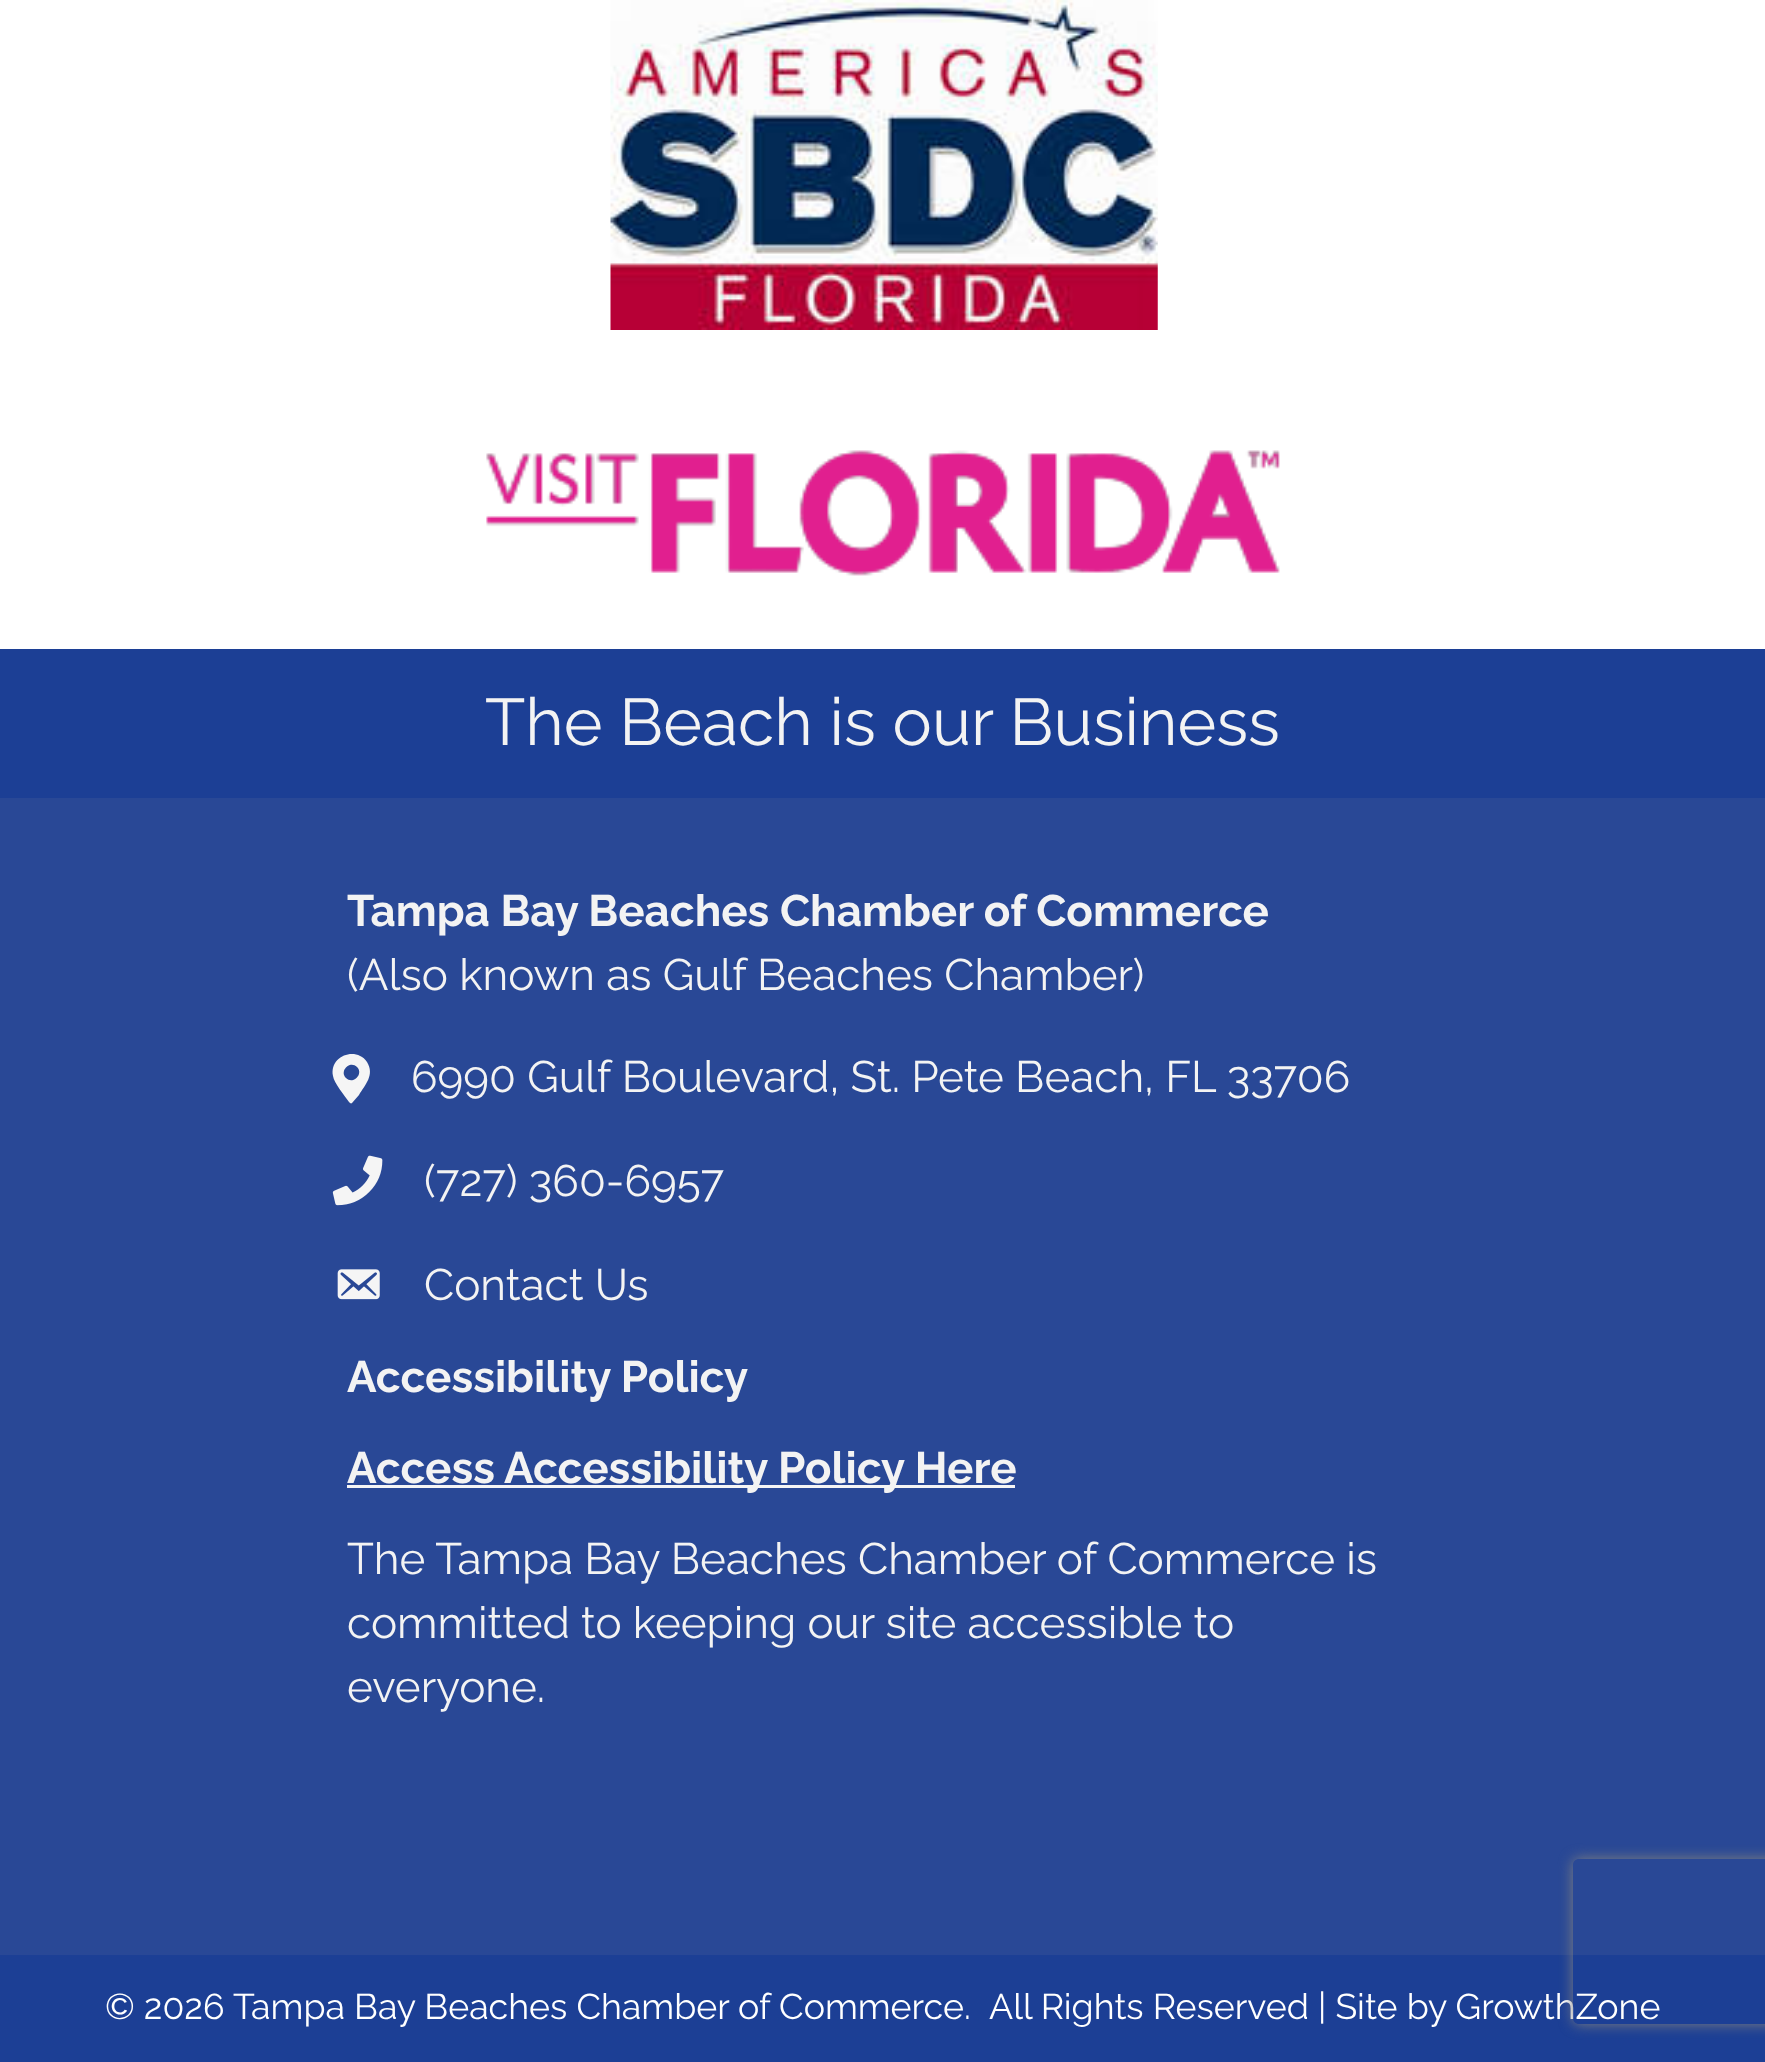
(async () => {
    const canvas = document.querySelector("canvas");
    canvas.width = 1765;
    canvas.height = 2062;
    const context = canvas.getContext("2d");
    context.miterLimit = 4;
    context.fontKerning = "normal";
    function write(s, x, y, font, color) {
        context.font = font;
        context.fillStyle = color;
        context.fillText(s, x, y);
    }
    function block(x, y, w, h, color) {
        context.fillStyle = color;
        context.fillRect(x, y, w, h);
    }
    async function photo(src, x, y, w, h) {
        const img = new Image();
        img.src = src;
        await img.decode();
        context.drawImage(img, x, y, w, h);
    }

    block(0, 0, 1765, 2062, "rgb(255, 255, 255)");
    await photo("media/1.png", 610, 0, 548, 330);
    await photo("media/2.png", 486, 450, 794, 126);
    block(0, 649, 1765, 149, "rgb(28, 63, 149)");
    write("The Beach is our Business", 485, 745, "66px Raleway", "rgb(243, 243, 243)");
    block(0, 798, 1765, 1157, "rgb(41, 72, 150)");
    write("Tampa Bay Beaches Chamber of Commerce", 347, 926, "bold 44px Raleway", "rgb(243, 243, 243)");
    write("(Also known as Gulf Beaches Chamber)", 347, 990, "44px Raleway", "rgb(243, 243, 243)");
    context.fillStyle = "rgb(245, 245, 245)";
    context.beginPath();
    context.moveTo(349, 1102);
    context.bezierCurveTo(345, 1096, 334, 1083, 333, 1076);
    context.bezierCurveTo(329, 1056, 356, 1046, 367, 1062);
    context.bezierCurveTo(375, 1075, 365, 1085, 359, 1095);
    context.lineTo(352, 1103);
    context.bezierCurveTo(351, 1104, 350, 1103, 349, 1102);
    context.closePath();
    context.moveTo(346, 1078);
    context.bezierCurveTo(353, 1085, 364, 1074, 357, 1067);
    context.bezierCurveTo(350, 1060, 339, 1071, 346, 1078);
    context.closePath();
    context.fill();
    write("6990 Gulf Boulevard, St. Pete Beach, FL 33706", 411, 1092, "44px Raleway", "rgb(243, 243, 243)");
    await photo("media/3.png", 332, 1155, 51, 51);
    write("(727) 360-6957", 424, 1196, "44px Raleway", "rgb(243, 243, 243)");
    await photo("media/4.png", 337, 1269, 43, 31);
    write("Contact Us", 424, 1300, "44px Raleway", "rgb(243, 243, 243)");
    write("Accessibility Policy", 347, 1392, "bold 44px Raleway", "rgb(243, 243, 243)");
    block(347, 1485, 668, 3, "rgb(245, 245, 245)");
    write("Access Accessibility Policy Here", 347, 1483, "bold 44px Raleway", "rgb(243, 243, 243)");
    write("The Tampa Bay Beaches Chamber of Commerce is", 347, 1574, "44px Raleway", "rgb(243, 243, 243)");
    write("committed to keeping our site accessible to", 347, 1638, "44px Raleway", "rgb(243, 243, 243)");
    write("everyone.", 347, 1702, "44px Raleway", "rgb(243, 243, 243)");
    block(0, 1955, 1765, 107, "rgb(28, 63, 149)");
    write("© 2026", 105, 2019, "35.75px Raleway", "rgb(255, 255, 255)");
    write("Tampa Bay Beaches Chamber of Commerce.", 233, 2019, "35.75px Raleway", "rgb(255, 255, 255)");
    write("All Rights Reserved | Site by GrowthZone", 989, 2019, "35.75px Raleway", "rgb(255, 255, 255)");
    context.save();
    context.beginPath();
    context.moveTo(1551, 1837);
    context.lineTo(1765, 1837);
    context.lineTo(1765, 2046);
    context.lineTo(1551, 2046);
    context.closePath();
    context.moveTo(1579, 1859);
    context.lineTo(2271, 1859);
    context.bezierCurveTo(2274.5, 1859, 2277, 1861.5, 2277, 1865);
    context.lineTo(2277, 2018);
    context.bezierCurveTo(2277, 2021.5, 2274.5, 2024, 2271, 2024);
    context.lineTo(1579, 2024);
    context.bezierCurveTo(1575.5, 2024, 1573, 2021.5, 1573, 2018);
    context.lineTo(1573, 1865);
    context.bezierCurveTo(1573, 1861.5, 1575.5, 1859, 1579, 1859);
    context.closePath();
    context.clip("evenodd");
    context.fillStyle = "rgb(128, 128, 128)";
    context.filter = "blur(7px)";
    context.beginPath();
    context.roundRect(1573, 1859, 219, 165, 6);
    context.fill();
    context.filter = "none";
    context.restore();
})();
